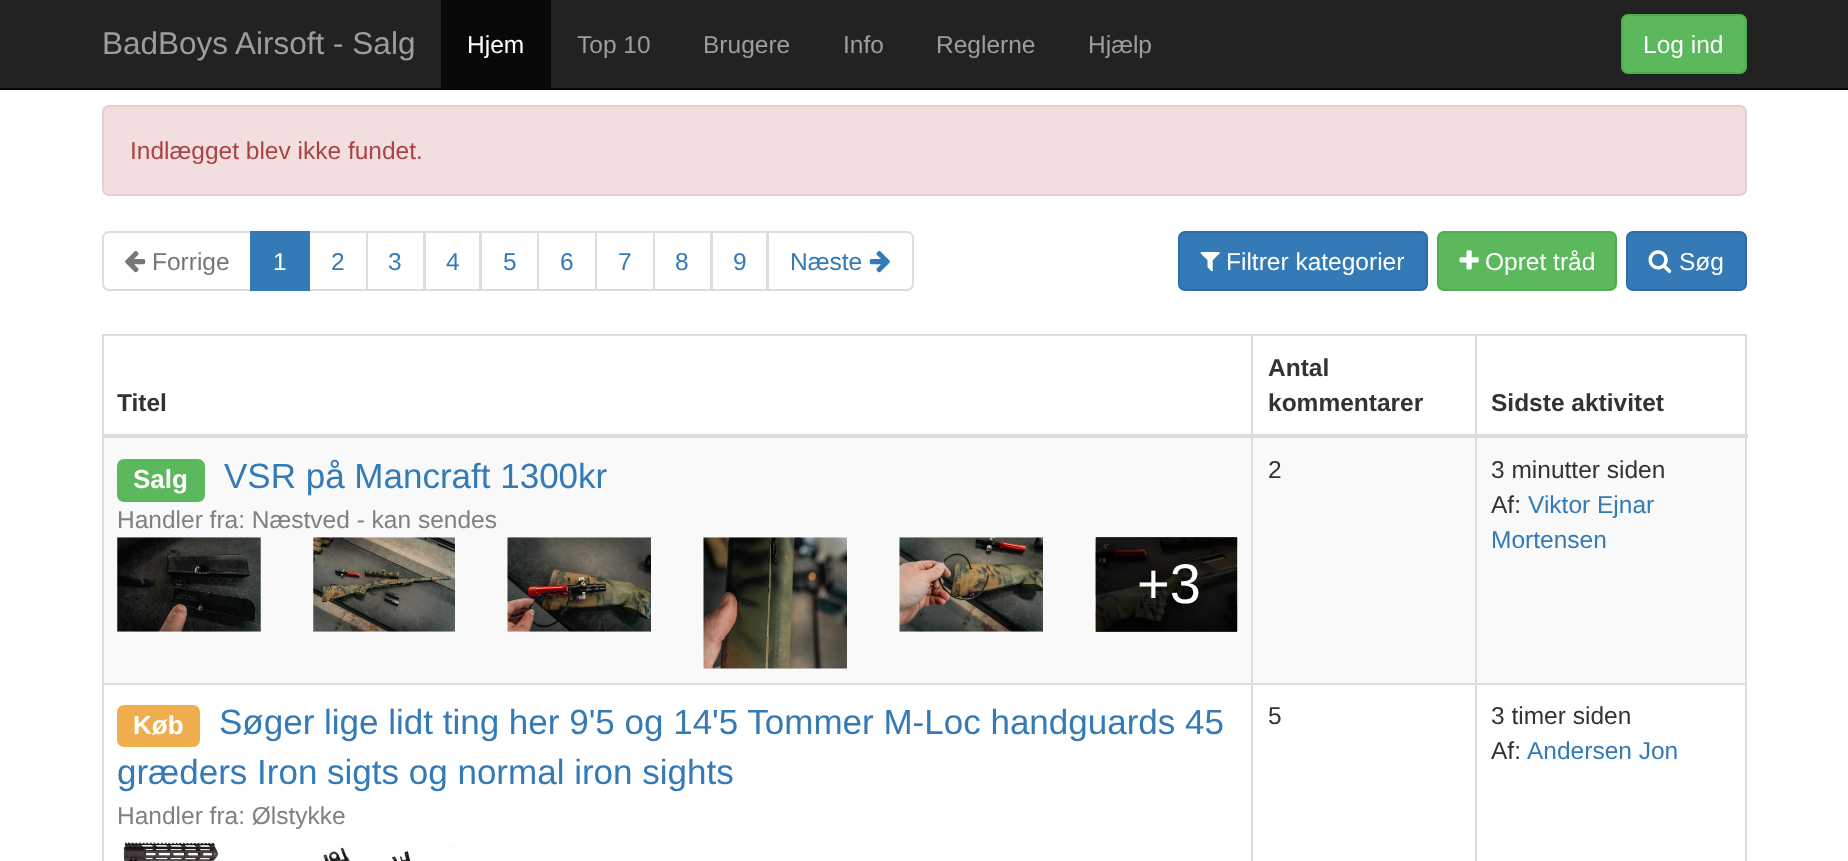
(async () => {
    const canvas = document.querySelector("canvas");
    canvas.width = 1848;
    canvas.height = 861;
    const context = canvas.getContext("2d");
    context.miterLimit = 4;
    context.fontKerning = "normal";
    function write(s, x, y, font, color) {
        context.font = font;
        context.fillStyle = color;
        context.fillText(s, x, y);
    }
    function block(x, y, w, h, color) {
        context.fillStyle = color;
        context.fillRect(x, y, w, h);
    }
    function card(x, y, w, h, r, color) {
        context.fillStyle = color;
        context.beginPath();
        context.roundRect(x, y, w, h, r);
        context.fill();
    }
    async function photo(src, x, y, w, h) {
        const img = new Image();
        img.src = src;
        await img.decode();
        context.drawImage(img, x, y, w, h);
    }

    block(0, 0, 1848, 861, "rgb(255, 255, 255)");
    block(0, 0, 1848, 88, "rgb(34, 34, 34)");
    block(0, 88, 1848, 2, "rgb(8, 8, 8)");
    write("BadBoys Airsoft - Salg", 102, 54, "31.5px Liberation Sans", "rgb(157, 157, 157)");
    block(441, 0, 110, 88, "rgb(8, 8, 8)");
    write("Hjem", 467, 53, "24.5px Liberation Sans", "rgb(255, 255, 255)");
    write("Top 10", 577, 53, "24.5px Liberation Sans", "rgb(157, 157, 157)");
    write("Brugere", 703, 53, "24.5px Liberation Sans", "rgb(157, 157, 157)");
    write("Info", 843, 53, "24.5px Liberation Sans", "rgb(157, 157, 157)");
    write("Reglerne", 936, 53, "24.5px Liberation Sans", "rgb(157, 157, 157)");
    write("Hjælp", 1088, 53, "24.5px Liberation Sans", "rgb(157, 157, 157)");
    context.fillStyle = "rgb(92, 184, 92)";
    context.beginPath();
    context.roundRect(1622, 15, 124, 58, 6);
    context.fill();
    context.strokeStyle = "rgb(76, 174, 76)";
    context.lineWidth = 2;
    context.stroke();
    write("Log ind", 1643, 53, "24.5px Liberation Sans", "rgb(255, 255, 255)");
    context.fillStyle = "rgb(242, 222, 222)";
    context.beginPath();
    context.roundRect(103, 106, 1643, 89, 6);
    context.fill();
    context.strokeStyle = "rgb(235, 204, 209)";
    context.stroke();
    write("Indlægget blev ikke fundet.", 130, 159, "24.5px Liberation Sans", "rgb(169, 68, 66)");
    context.beginPath();
    context.roundRect(103, 232, 148, 58, [6, 0, 0, 6]);
    context.strokeStyle = "rgb(221, 221, 221)";
    context.stroke();
    await photo("media/1.png", 125, 251, 21, 22);
    write("Forrige", 152, 270, "24.5px Liberation Sans", "rgb(119, 119, 119)");
    context.strokeRect(309, 232, 58, 58);
    block(250, 231, 60, 60, "rgb(51, 122, 183)");
    write("1", 273, 270, "24.5px Liberation Sans", "rgb(255, 255, 255)");
    write("2", 331, 270, "24.5px Liberation Sans", "rgb(51, 122, 183)");
    context.strokeRect(367, 232, 57, 58);
    write("3", 388, 270, "24.5px Liberation Sans", "rgb(51, 122, 183)");
    context.strokeRect(425, 232, 55, 58);
    write("4", 446, 270, "24.5px Liberation Sans", "rgb(51, 122, 183)");
    context.strokeRect(481, 232, 57, 58);
    write("5", 503, 270, "24.5px Liberation Sans", "rgb(51, 122, 183)");
    context.strokeRect(538, 232, 58, 58);
    write("6", 560, 270, "24.5px Liberation Sans", "rgb(51, 122, 183)");
    context.strokeRect(596, 232, 58, 58);
    write("7", 618, 270, "24.5px Liberation Sans", "rgb(51, 122, 183)");
    context.strokeRect(654, 232, 57, 58);
    write("8", 675, 270, "24.5px Liberation Sans", "rgb(51, 122, 183)");
    context.strokeRect(712, 232, 55, 58);
    write("9", 733, 270, "24.5px Liberation Sans", "rgb(51, 122, 183)");
    context.fillStyle = "rgb(255, 255, 255)";
    context.beginPath();
    context.roundRect(768, 232, 145, 58, [0, 6, 6, 0]);
    context.fill();
    context.stroke();
    write("Næste", 790, 270, "24.5px Liberation Sans", "rgb(51, 122, 183)");
    await photo("media/2.png", 869, 251, 21, 22);
    context.beginPath();
    context.roundRect(1179, 232, 248, 58, 6);
    context.fill();
    context.strokeStyle = "rgb(46, 109, 164)";
    context.stroke();
    await photo("media/3.png", 1200, 252, 20, 20);
    write("Filtrer kategorier", 1226, 270, "24.5px Liberation Sans", "rgb(255, 255, 255)");
    context.fillStyle = "rgb(92, 184, 92)";
    context.beginPath();
    context.roundRect(1438, 232, 178, 58, 6);
    context.fill();
    context.strokeStyle = "rgb(76, 174, 76)";
    context.stroke();
    await photo("media/4.png", 1459, 250, 20, 20);
    write("Opret tråd", 1485, 270, "24.5px Liberation Sans", "rgb(255, 255, 255)");
    context.fillStyle = "rgb(51, 122, 183)";
    context.beginPath();
    context.roundRect(1627, 232, 119, 58, 6);
    context.fill();
    context.strokeStyle = "rgb(46, 109, 164)";
    context.stroke();
    await photo("media/5.png", 1648, 250, 24, 23);
    write("Søg", 1679, 270, "24.5px Liberation Sans", "rgb(255, 255, 255)");
    block(102, 334, 1645, 2, "rgb(221, 221, 221)");
    block(1745, 334, 2, 527, "rgb(221, 221, 221)");
    block(102, 334, 2, 527, "rgb(221, 221, 221)");
    write("Titel", 117, 411, "bold 24.5px Liberation Sans", "rgb(51, 51, 51)");
    write("Antal", 1268, 376, "bold 24.5px Liberation Sans", "rgb(51, 51, 51)");
    write("kommentarer", 1268, 411, "bold 24.5px Liberation Sans", "rgb(51, 51, 51)");
    block(104, 438, 1641, 245, "rgb(249, 249, 249)");
    block(1475, 683, 272, 2, "rgb(221, 221, 221)");
    block(1475, 683, 2, 178, "rgb(221, 221, 221)");
    block(1251, 683, 226, 2, "rgb(221, 221, 221)");
    block(1251, 683, 2, 178, "rgb(221, 221, 221)");
    block(102, 683, 1151, 2, "rgb(221, 221, 221)");
    block(1251, 334, 2, 350, "rgb(221, 221, 221)");
    block(1475, 334, 2, 350, "rgb(221, 221, 221)");
    block(102, 434, 1646, 4, "rgb(221, 221, 221)");
    write("Sidste aktivitet", 1491, 411, "bold 24.5px Liberation Sans", "rgb(51, 51, 51)");
    block(1096, 537, 141, 95, "rgb(75, 75, 75)");
    card(117, 459, 88, 43, 7, "rgb(92, 184, 92)");
    write("Salg", 133, 488, "bold 26px Liberation Sans", "rgb(255, 255, 255)");
    write("VSR på Mancraft 1300kr", 224, 488, "35px Liberation Sans", "rgb(51, 122, 183)");
    write("Handler fra: Næstved - kan sendes", 117, 528, "24.5px Liberation Sans", "rgb(128, 128, 128)");
    await photo("media/6.png", 117, 537, 144, 95);
    await photo("media/7.png", 313, 537, 142, 95);
    await photo("media/8.png", 507, 537, 144, 95);
    await photo("media/9.png", 703, 537, 144, 132);
    await photo("media/10.png", 899, 537, 144, 95);
    await photo("media/11.png", 1095, 537, 143, 95);
    write("+3", 1137, 603, "56px Liberation Sans", "rgb(255, 255, 255)");
    write("2", 1268, 478, "24.5px Liberation Sans", "rgb(51, 51, 51)");
    write("3 minutter siden", 1491, 478, "24.5px Liberation Sans", "rgb(51, 51, 51)");
    write("Af:", 1491, 513, "24.5px Liberation Sans", "rgb(51, 51, 51)");
    write("Viktor Ejnar", 1528, 513, "24.5px Liberation Sans", "rgb(51, 122, 183)");
    write("Mortensen", 1491, 548, "24.5px Liberation Sans", "rgb(51, 122, 183)");
    card(117, 705, 83, 42, 7, "rgb(240, 173, 78)");
    write("Køb", 133, 734, "bold 26px Liberation Sans", "rgb(255, 255, 255)");
    write("Søger lige lidt ting her 9'5 og 14'5 Tommer M-Loc handguards 45", 219, 734, "35px Liberation Sans", "rgb(51, 122, 183)");
    write("græders Iron sigts og normal iron sights", 117, 784, "35px Liberation Sans", "rgb(51, 122, 183)");
    write("Handler fra: Ølstykke", 117, 824, "24.5px Liberation Sans", "rgb(128, 128, 128)");
    await photo("media/12.png", 123, 842, 96, 19);
    await photo("media/13.png", 323, 846, 132, 15);
    write("5", 1268, 724, "24.5px Liberation Sans", "rgb(51, 51, 51)");
    write("3 timer siden", 1491, 724, "24.5px Liberation Sans", "rgb(51, 51, 51)");
    write("Af:", 1491, 759, "24.5px Liberation Sans", "rgb(51, 51, 51)");
    write("Andersen Jon", 1527, 759, "24.5px Liberation Sans", "rgb(51, 122, 183)");
})();
